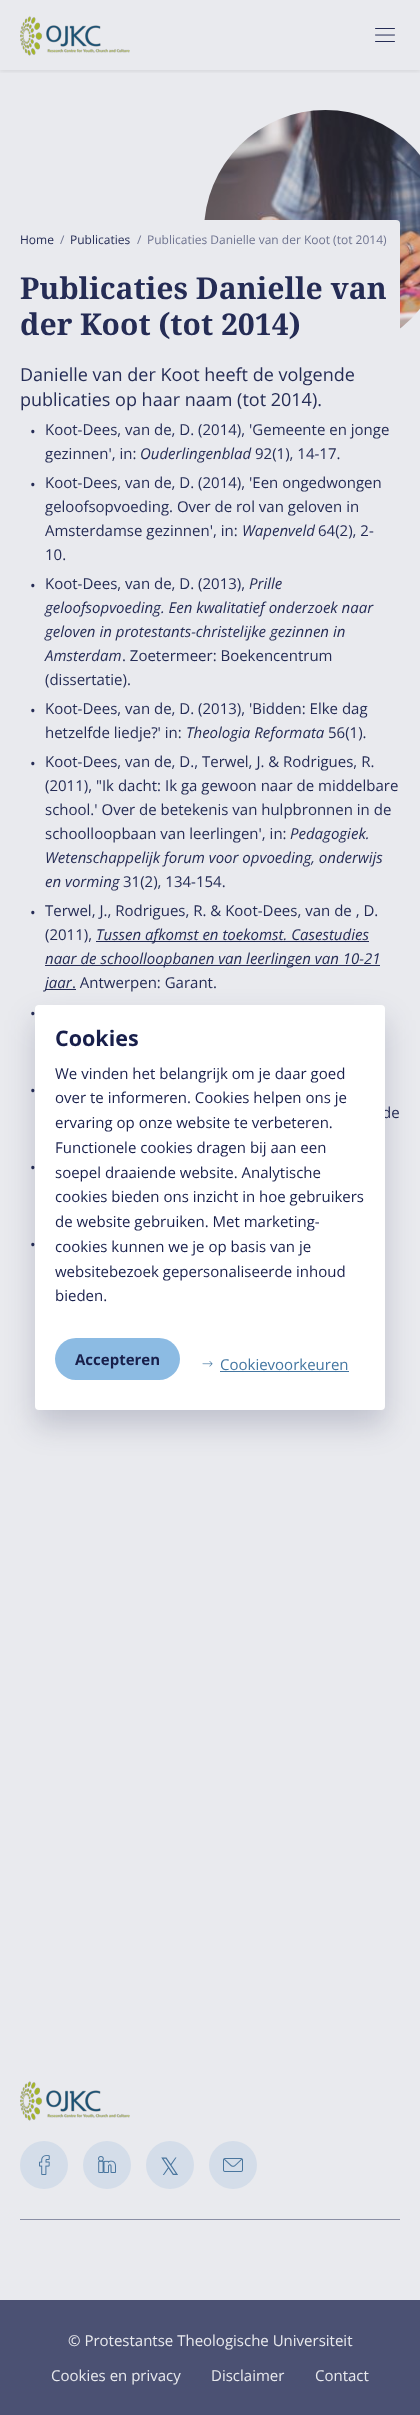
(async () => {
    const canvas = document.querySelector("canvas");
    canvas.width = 420;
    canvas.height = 2415;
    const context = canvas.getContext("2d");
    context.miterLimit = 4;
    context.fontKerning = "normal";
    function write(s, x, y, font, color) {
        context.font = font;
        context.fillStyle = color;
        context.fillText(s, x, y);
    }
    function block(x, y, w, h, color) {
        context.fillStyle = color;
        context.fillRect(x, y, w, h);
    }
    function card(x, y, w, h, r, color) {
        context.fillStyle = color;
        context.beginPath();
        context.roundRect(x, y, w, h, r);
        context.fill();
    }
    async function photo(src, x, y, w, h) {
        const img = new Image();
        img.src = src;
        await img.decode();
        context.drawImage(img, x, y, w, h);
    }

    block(0, 0, 420, 2415, "rgb(233, 234, 238)");
    context.save();
    context.beginPath();
    context.rect(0, 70, 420, 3);
    context.clip();
    context.fillStyle = "rgba(17, 17, 22, 0.1)";
    context.filter = "blur(2.5px)";
    context.beginPath();
    context.rect(0, 1, 420, 70);
    context.fill();
    context.filter = "none";
    context.restore();
    await photo("media/1.png", 20, 16, 110, 40);
    await photo("media/2.png", 375, 28, 20, 14);
    await photo("media/3.png", 204, 110, 216, 219);
    card(20, 220, 380, 1087, 4, "rgb(233, 234, 238)");
    write("Home", 20, 244, "12px Open Sans", "rgb(37, 44, 85)");
    write("/", 60, 244, "12px Open Sans", "rgb(111, 116, 144)");
    write("Publicaties", 70, 244, "12px Open Sans", "rgb(37, 44, 85)");
    write("/", 137, 244, "12px Open Sans", "rgb(111, 116, 144)");
    write("Publicaties Danielle van der Koot (tot 2014)", 147, 244, "12px Open Sans", "rgb(111, 116, 144)");
    write("Publicaties Danielle van", 20, 299, "bold 30px Noto Serif", "rgb(37, 44, 85)");
    write("der Koot (tot 2014)", 20, 335, "bold 30px Noto Serif", "rgb(37, 44, 85)");
    write("Danielle van der Koot heeft de volgende", 20, 381, "18px Open Sans", "rgb(37, 44, 85)");
    write("publicaties op haar naam (tot 2014).", 20, 406, "18px Open Sans", "rgb(37, 44, 85)");
    write("•", 30, 437, "15px Open Sans", "rgb(37, 44, 85)");
    write("Koot-Dees, van de, D. (2014), 'Gemeente en jonge", 45, 435, "15px Open Sans", "rgb(37, 44, 85)");
    write("gezinnen', in:", 45, 459, "15px Open Sans", "rgb(37, 44, 85)");
    write("Ouderlingenblad", 140, 459, "italic 15px Open Sans", "rgb(37, 44, 85)");
    write("92(1), 14-17.", 255, 459, "15px Open Sans", "rgb(37, 44, 85)");
    write("•", 30, 490, "15px Open Sans", "rgb(37, 44, 85)");
    write("Koot-Dees, van de, D. (2014), 'Een ongedwongen", 45, 488, "15px Open Sans", "rgb(37, 44, 85)");
    write("geloofsopvoeding. Over de rol van geloven in", 45, 512, "15px Open Sans", "rgb(37, 44, 85)");
    write("Amsterdamse gezinnen', in:", 45, 536, "15px Open Sans", "rgb(37, 44, 85)");
    write("Wapenveld", 242, 536, "italic 15px Open Sans", "rgb(37, 44, 85)");
    write("64(2), 2-", 318, 536, "15px Open Sans", "rgb(37, 44, 85)");
    write("10.", 45, 560, "15px Open Sans", "rgb(37, 44, 85)");
    write("•", 30, 591, "15px Open Sans", "rgb(37, 44, 85)");
    write("Koot-Dees, van de, D. (2013),", 45, 589, "15px Open Sans", "rgb(37, 44, 85)");
    write("Prille", 249, 589, "italic 15px Open Sans", "rgb(37, 44, 85)");
    write("geloofsopvoeding. Een kwalitatief onderzoek naar", 45, 613, "italic 15px Open Sans", "rgb(37, 44, 85)");
    write("geloven in protestants-christelijke gezinnen in", 45, 637, "italic 15px Open Sans", "rgb(37, 44, 85)");
    write("Amsterdam", 45, 661, "italic 15px Open Sans", "rgb(37, 44, 85)");
    write(". Zoetermeer: Boekencentrum", 122, 661, "15px Open Sans", "rgb(37, 44, 85)");
    write("(dissertatie).", 45, 685, "15px Open Sans", "rgb(37, 44, 85)");
    write("•", 30, 716, "15px Open Sans", "rgb(37, 44, 85)");
    write("Koot-Dees, van de, D. (2013), 'Bidden: Elke dag", 45, 714, "15px Open Sans", "rgb(37, 44, 85)");
    write("hetzelfde liedje?' in:", 45, 738, "15px Open Sans", "rgb(37, 44, 85)");
    write("Theologia Reformata", 186, 738, "italic 15px Open Sans", "rgb(37, 44, 85)");
    write("56(1).", 328, 738, "15px Open Sans", "rgb(37, 44, 85)");
    write("•", 30, 769, "15px Open Sans", "rgb(37, 44, 85)");
    write("Koot-Dees, van de, D., Terwel, J. & Rodrigues, R.", 45, 767, "15px Open Sans", "rgb(37, 44, 85)");
    write("(2011), \"Ik dacht: Ik ga gewoon naar de middelbare", 45, 791, "15px Open Sans", "rgb(37, 44, 85)");
    write("school.' Over de betekenis van hulpbronnen in de", 45, 815, "15px Open Sans", "rgb(37, 44, 85)");
    write("schoolloopbaan van leerlingen', in:", 45, 839, "15px Open Sans", "rgb(37, 44, 85)");
    write("Pedagogiek.", 290, 839, "italic 15px Open Sans", "rgb(37, 44, 85)");
    write("Wetenschappelijk forum voor opvoeding, onderwijs", 45, 863, "italic 15px Open Sans", "rgb(37, 44, 85)");
    write("en vorming", 45, 887, "italic 15px Open Sans", "rgb(37, 44, 85)");
    write("31(2), 134-154.", 123, 887, "15px Open Sans", "rgb(37, 44, 85)");
    write("•", 30, 918, "15px Open Sans", "rgb(37, 44, 85)");
    write("Terwel, J., Rodrigues, R. & Koot-Dees, van de , D.", 45, 916, "15px Open Sans", "rgb(37, 44, 85)");
    write("(2011),", 45, 940, "15px Open Sans", "rgb(37, 44, 85)");
    block(96, 941, 273, 1, "rgb(37, 44, 85)");
    write("Tussen afkomst en toekomst. Casestudies", 96, 940, "italic 15px Open Sans", "rgb(37, 44, 85)");
    block(45, 965, 335, 1, "rgb(37, 44, 85)");
    write("naar de schoolloopbanen van leerlingen van 10-21", 45, 964, "italic 15px Open Sans", "rgb(37, 44, 85)");
    block(45, 989, 27, 1, "rgb(37, 44, 85)");
    write("jaar", 45, 988, "italic 15px Open Sans", "rgb(37, 44, 85)");
    block(72, 989, 4, 1, "rgb(37, 44, 85)");
    write(". Antwerpen: Garant.", 72, 988, "15px Open Sans", "rgb(37, 44, 85)");
    write("•", 30, 1019, "15px Open Sans", "rgb(37, 44, 85)");
    write("•", 30, 1096, "15px Open Sans", "rgb(37, 44, 85)");
    write("de", 382, 1118, "15px Open Sans", "rgb(37, 44, 85)");
    write("•", 30, 1173, "15px Open Sans", "rgb(37, 44, 85)");
    write("•", 30, 1250, "15px Open Sans", "rgb(37, 44, 85)");
    block(20, 2219, 380, 1, "rgb(138, 142, 164)");
    await photo("media/1.png", 20, 2081, 110, 40);
    context.fillStyle = "rgb(212, 221, 233)";
    context.beginPath();
    context.arc(44, 2165, 24, 0, Math.PI * 2);
    context.fill();
    await photo("media/4.png", 39, 2155, 11, 20);
    context.beginPath();
    context.arc(107, 2165, 24, 0, Math.PI * 2);
    context.fill();
    await photo("media/5.png", 98, 2156, 18, 17);
    context.beginPath();
    context.arc(170, 2165, 24, 0, Math.PI * 2);
    context.fill();
    write("𝕏", 160, 2175, "24px DejaVu Sans", "rgb(74, 118, 158)");
    context.fillStyle = "rgb(212, 221, 233)";
    context.beginPath();
    context.arc(233, 2165, 24, 0, Math.PI * 2);
    context.fill();
    await photo("media/6.png", 223, 2158, 20, 14);
    block(0, 2300, 420, 115, "rgb(75, 81, 115)");
    write("© Protestantse Theologische Universiteit", 68, 2346, "15px Open Sans", "rgb(233, 234, 238)");
    write("Cookies en privacy", 51, 2381, "15px Open Sans", "rgb(233, 234, 238)");
    write("Disclaimer", 211, 2381, "15px Open Sans", "rgb(233, 234, 238)");
    write("Contact", 315, 2381, "15px Open Sans", "rgb(233, 234, 238)");
    context.fillStyle = "rgba(24, 31, 75, 0.2)";
    context.filter = "blur(15px)";
    context.beginPath();
    context.roundRect(35, 1020, 350, 405, 4);
    context.fill();
    context.filter = "none";
    card(35, 1005, 350, 405, 4, "rgb(255, 255, 255)");
    write("Cookies", 55, 1046, "bold 21.5px Open Sans", "rgb(24, 31, 75)");
    write("We vinden het belangrijk om je daar goed", 55, 1079, "15px Open Sans", "rgb(24, 31, 75)");
    write("over te informeren. Cookies helpen ons je", 55, 1103, "15px Open Sans", "rgb(24, 31, 75)");
    write("ervaring op onze website te verbeteren.", 55, 1128, "15px Open Sans", "rgb(24, 31, 75)");
    write("Functionele cookies dragen bij aan een", 55, 1153, "15px Open Sans", "rgb(24, 31, 75)");
    write("soepel draaiende website. Analytische", 55, 1178, "15px Open Sans", "rgb(24, 31, 75)");
    write("cookies bieden ons inzicht in hoe gebruikers", 55, 1202, "15px Open Sans", "rgb(24, 31, 75)");
    write("de website gebruiken. Met marketing-", 55, 1227, "15px Open Sans", "rgb(24, 31, 75)");
    write("cookies kunnen we je op basis van je", 55, 1252, "15px Open Sans", "rgb(24, 31, 75)");
    write("websitebezoek gepersonaliseerde inhoud", 55, 1277, "15px Open Sans", "rgb(24, 31, 75)");
    write("bieden.", 55, 1301, "15px Open Sans", "rgb(24, 31, 75)");
    card(55, 1338, 125, 42, 21, "rgb(140, 187, 227)");
    write("Accepteren", 75, 1365, "bold 15px Open Sans", "rgb(24, 31, 75)");
    await photo("media/7.png", 202, 1361, 11, 6);
    write("Cookievoorkeuren", 220, 1370, "15px Open Sans", "rgb(67, 118, 161)");
    block(220, 1371, 129, 1, "rgb(67, 118, 161)");
})();
